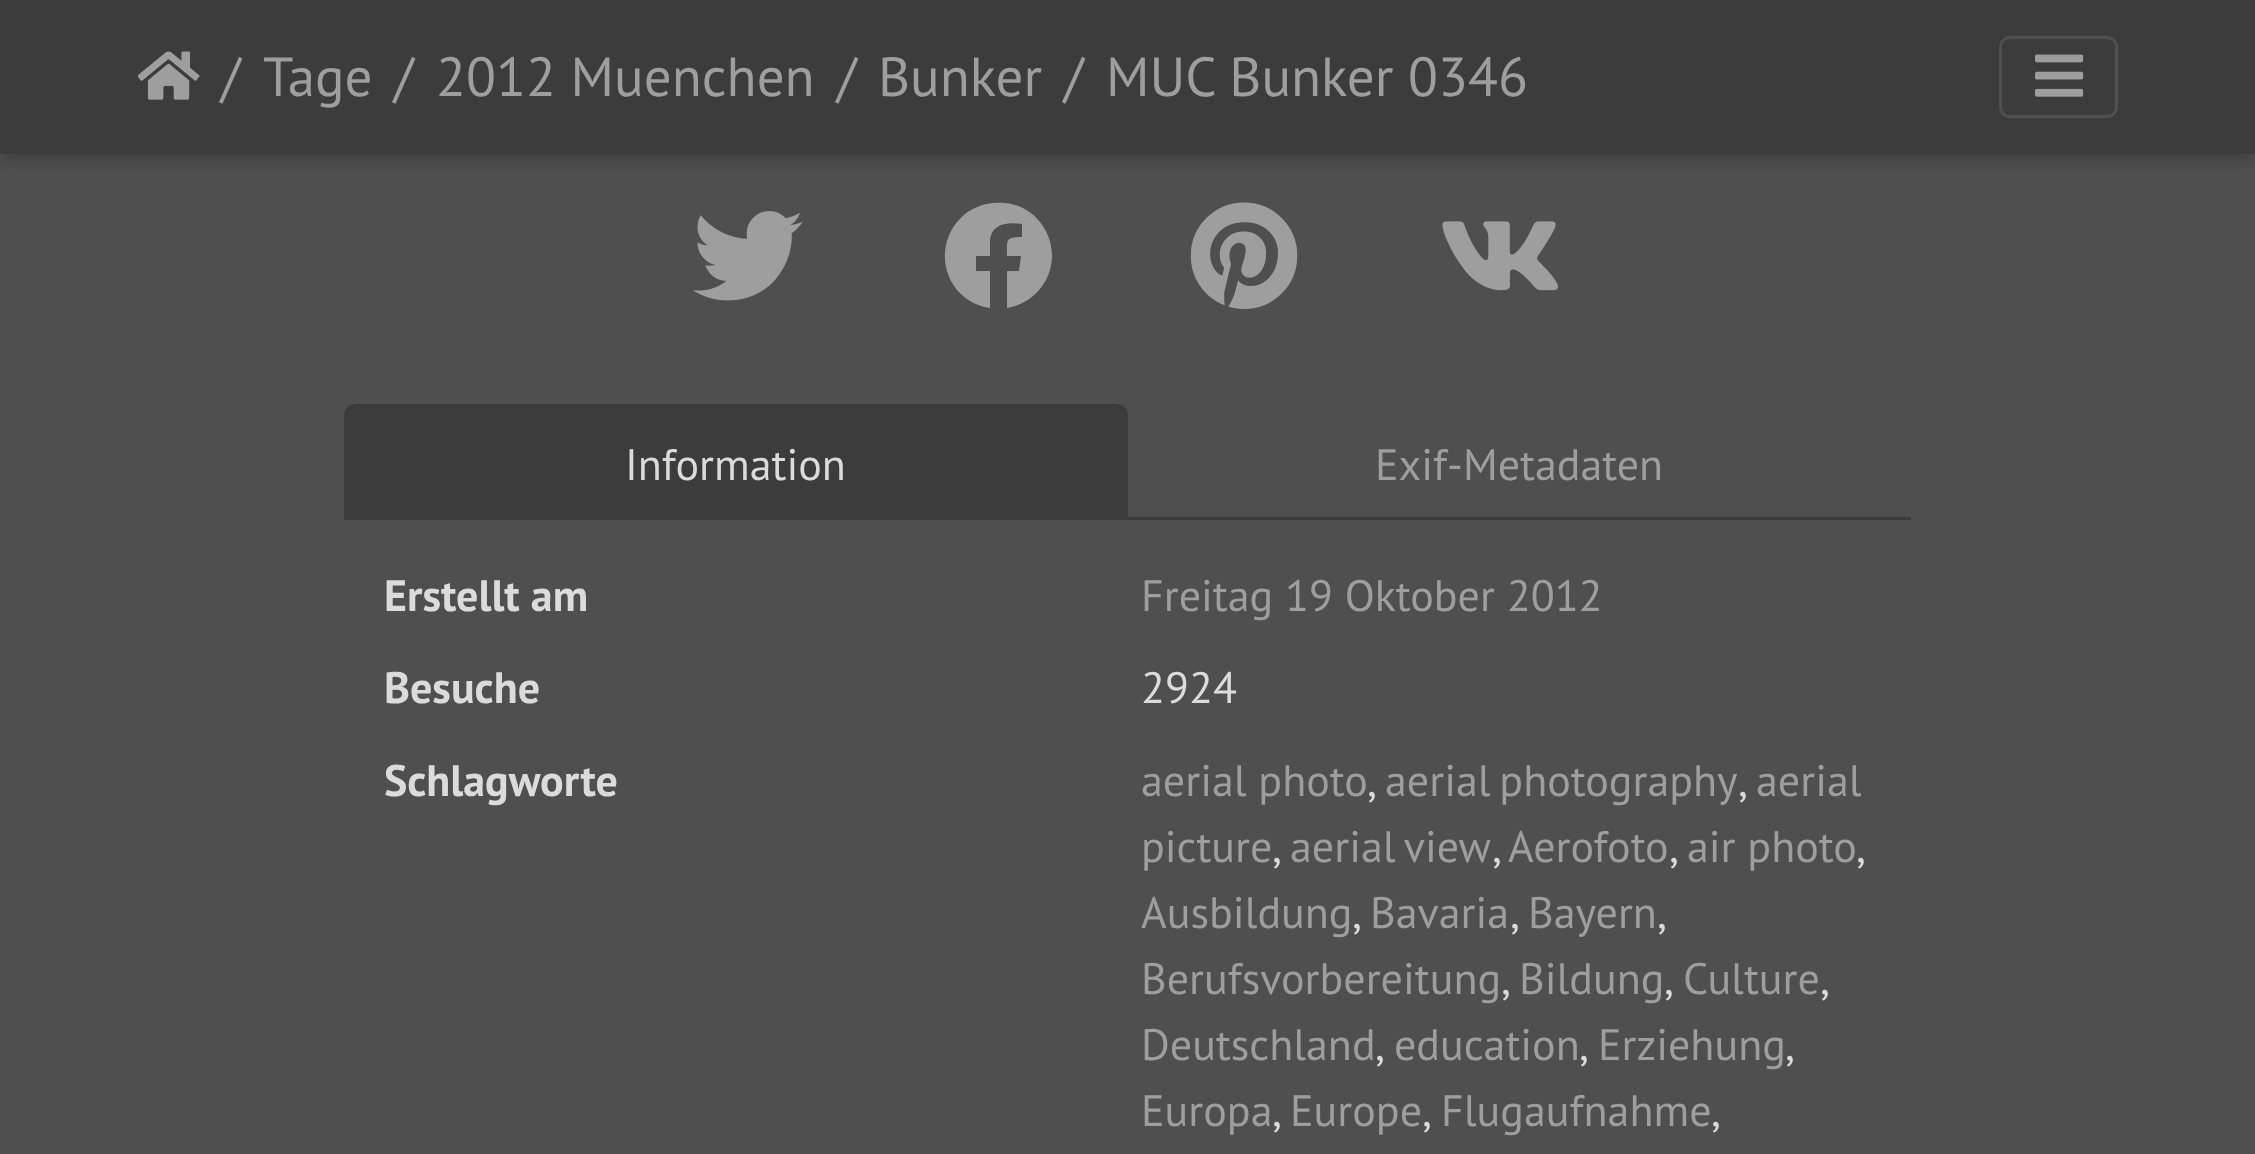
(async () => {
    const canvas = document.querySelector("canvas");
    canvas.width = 2255;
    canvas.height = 1154;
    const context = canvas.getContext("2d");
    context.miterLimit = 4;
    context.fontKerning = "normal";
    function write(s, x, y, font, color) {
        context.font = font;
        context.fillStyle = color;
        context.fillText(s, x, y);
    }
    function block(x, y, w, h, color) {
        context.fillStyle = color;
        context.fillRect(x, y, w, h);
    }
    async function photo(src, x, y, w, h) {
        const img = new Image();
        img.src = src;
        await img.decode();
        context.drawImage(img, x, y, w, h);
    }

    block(0, 0, 2255, 1154, "rgb(79, 79, 79)");
    context.fillStyle = "rgba(0, 0, 0, 0.2)";
    context.filter = "blur(7px)";
    context.beginPath();
    context.rect(3, 11, 2249, 149);
    context.fill();
    context.filter = "none";
    block(0, 0, 2255, 154, "rgb(60, 60, 60)");
    await photo("media/1.png", 138, 51, 62, 49);
    write("/", 221, 96, "55px PT Sans", "rgb(158, 158, 158)");
    write("Tage", 263, 96, "55px PT Sans", "rgb(158, 158, 158)");
    write("/", 394, 96, "55px PT Sans", "rgb(158, 158, 158)");
    write("2012 Muenchen", 436, 96, "55px PT Sans", "rgb(158, 158, 158)");
    write("/", 837, 96, "55px PT Sans", "rgb(158, 158, 158)");
    write("Bunker", 878, 96, "55px PT Sans", "rgb(158, 158, 158)");
    write("/", 1064, 96, "55px PT Sans", "rgb(158, 158, 158)");
    write("MUC Bunker 0346", 1106, 96, "55px PT Sans", "rgb(158, 158, 158)");
    context.beginPath();
    context.roundRect(2000.5, 37.5, 116, 79, 9.5);
    context.strokeStyle = "rgb(80, 80, 80)";
    context.lineWidth = 3;
    context.stroke();
    await photo("media/2.png", 2035, 54, 49, 43);
    await photo("media/3.png", 693, 211, 110, 90);
    context.beginPath();
    context.moveTo(1052, 256);
    context.bezierCurveTo(1052, 282, 1032, 304, 1007, 308);
    context.lineTo(1007, 271);
    context.lineTo(1019, 271);
    context.lineTo(1021, 256);
    context.lineTo(1007, 256);
    context.bezierCurveTo(1007, 240, 1005, 237, 1022, 237);
    context.lineTo(1022, 224);
    context.bezierCurveTo(1008, 222, 993, 223, 990, 239);
    context.lineTo(990, 256);
    context.lineTo(976, 256);
    context.lineTo(976, 271);
    context.lineTo(990, 271);
    context.lineTo(990, 308);
    context.bezierCurveTo(944, 301, 929, 244, 965, 214);
    context.bezierCurveTo(973, 208, 982, 204, 993, 203);
    context.bezierCurveTo(1005, 202, 1018, 204, 1028, 211);
    context.bezierCurveTo(1043, 221, 1052, 238, 1052, 256);
    context.closePath();
    context.fill();
    await photo("media/4.png", 1190, 202, 108, 107);
    await photo("media/5.png", 1442, 221, 116, 70);
    block(1128, 517, 783, 3, "rgb(60, 60, 60)");
    context.beginPath();
    context.roundRect(345.5, 405.5, 781, 113, [9.5, 9.5, 0, 0]);
    context.fill();
    context.strokeStyle = "rgb(60, 60, 60)";
    context.stroke();
    write("Information", 625, 480, "44px PT Sans", "rgb(219, 219, 219)");
    write("Exif-Metadaten", 1375, 480, "44px PT Sans", "rgb(158, 158, 158)");
    write("Erstellt am", 384, 611, "bold 44px PT Sans", "rgb(219, 219, 219)");
    write("Freitag 19 Oktober 2012", 1141, 611, "44px PT Sans", "rgb(158, 158, 158)");
    write("Besuche", 384, 703, "bold 44px PT Sans", "rgb(219, 219, 219)");
    write("2924", 1141, 703, "44px PT Sans", "rgb(219, 219, 219)");
    write("Schlagworte", 384, 796, "bold 44px PT Sans", "rgb(219, 219, 219)");
    write("aerial photo", 1141, 796, "44px PT Sans", "rgb(158, 158, 158)");
    write(",", 1367, 796, "44px PT Sans", "rgb(219, 219, 219)");
    context.wordSpacing = "-3px";
    write("aerial photography", 1385, 796, "44px PT Sans", "rgb(158, 158, 158)");
    context.wordSpacing = "0px";
    write(",", 1738, 796, "44px PT Sans", "rgb(219, 219, 219)");
    write("aerial", 1756, 796, "44px PT Sans", "rgb(158, 158, 158)");
    write("picture", 1141, 862, "44px PT Sans", "rgb(158, 158, 158)");
    write(",", 1272, 862, "44px PT Sans", "rgb(219, 219, 219)");
    context.wordSpacing = "-3px";
    write("aerial view", 1290, 862, "44px PT Sans", "rgb(158, 158, 158)");
    context.wordSpacing = "0px";
    write(",", 1492, 862, "44px PT Sans", "rgb(219, 219, 219)");
    write("Aerofoto", 1508, 862, "44px PT Sans", "rgb(158, 158, 158)");
    write(",", 1669, 862, "44px PT Sans", "rgb(219, 219, 219)");
    write("air photo", 1687, 862, "44px PT Sans", "rgb(158, 158, 158)");
    write(",", 1856, 862, "44px PT Sans", "rgb(219, 219, 219)");
    write("Ausbildung", 1141, 928, "44px PT Sans", "rgb(158, 158, 158)");
    write(",", 1352, 928, "44px PT Sans", "rgb(219, 219, 219)");
    write("Bavaria", 1370, 928, "44px PT Sans", "rgb(158, 158, 158)");
    write(",", 1510, 928, "44px PT Sans", "rgb(219, 219, 219)");
    write("Bayern", 1528, 928, "44px PT Sans", "rgb(158, 158, 158)");
    write(",", 1657, 928, "44px PT Sans", "rgb(219, 219, 219)");
    write("Berufsvorbereitung", 1141, 994, "44px PT Sans", "rgb(158, 158, 158)");
    write(",", 1501, 994, "44px PT Sans", "rgb(219, 219, 219)");
    write("Bildung", 1519, 994, "44px PT Sans", "rgb(158, 158, 158)");
    write(",", 1664, 994, "44px PT Sans", "rgb(219, 219, 219)");
    write("Culture", 1683, 994, "44px PT Sans", "rgb(158, 158, 158)");
    write(",", 1820, 994, "44px PT Sans", "rgb(219, 219, 219)");
    write("Deutschland", 1141, 1060, "44px PT Sans", "rgb(158, 158, 158)");
    write(",", 1375, 1060, "44px PT Sans", "rgb(219, 219, 219)");
    write("education", 1394, 1060, "44px PT Sans", "rgb(158, 158, 158)");
    write(",", 1579, 1060, "44px PT Sans", "rgb(219, 219, 219)");
    write("Erziehung", 1598, 1060, "44px PT Sans", "rgb(158, 158, 158)");
    write(",", 1785, 1060, "44px PT Sans", "rgb(219, 219, 219)");
    write("Europa", 1141, 1126, "44px PT Sans", "rgb(158, 158, 158)");
    write(",", 1272, 1126, "44px PT Sans", "rgb(219, 219, 219)");
    write("Europe", 1290, 1126, "44px PT Sans", "rgb(158, 158, 158)");
    write(",", 1422, 1126, "44px PT Sans", "rgb(219, 219, 219)");
    write("Flugaufnahme", 1441, 1126, "44px PT Sans", "rgb(158, 158, 158)");
    write(",", 1711, 1126, "44px PT Sans", "rgb(219, 219, 219)");
})();
